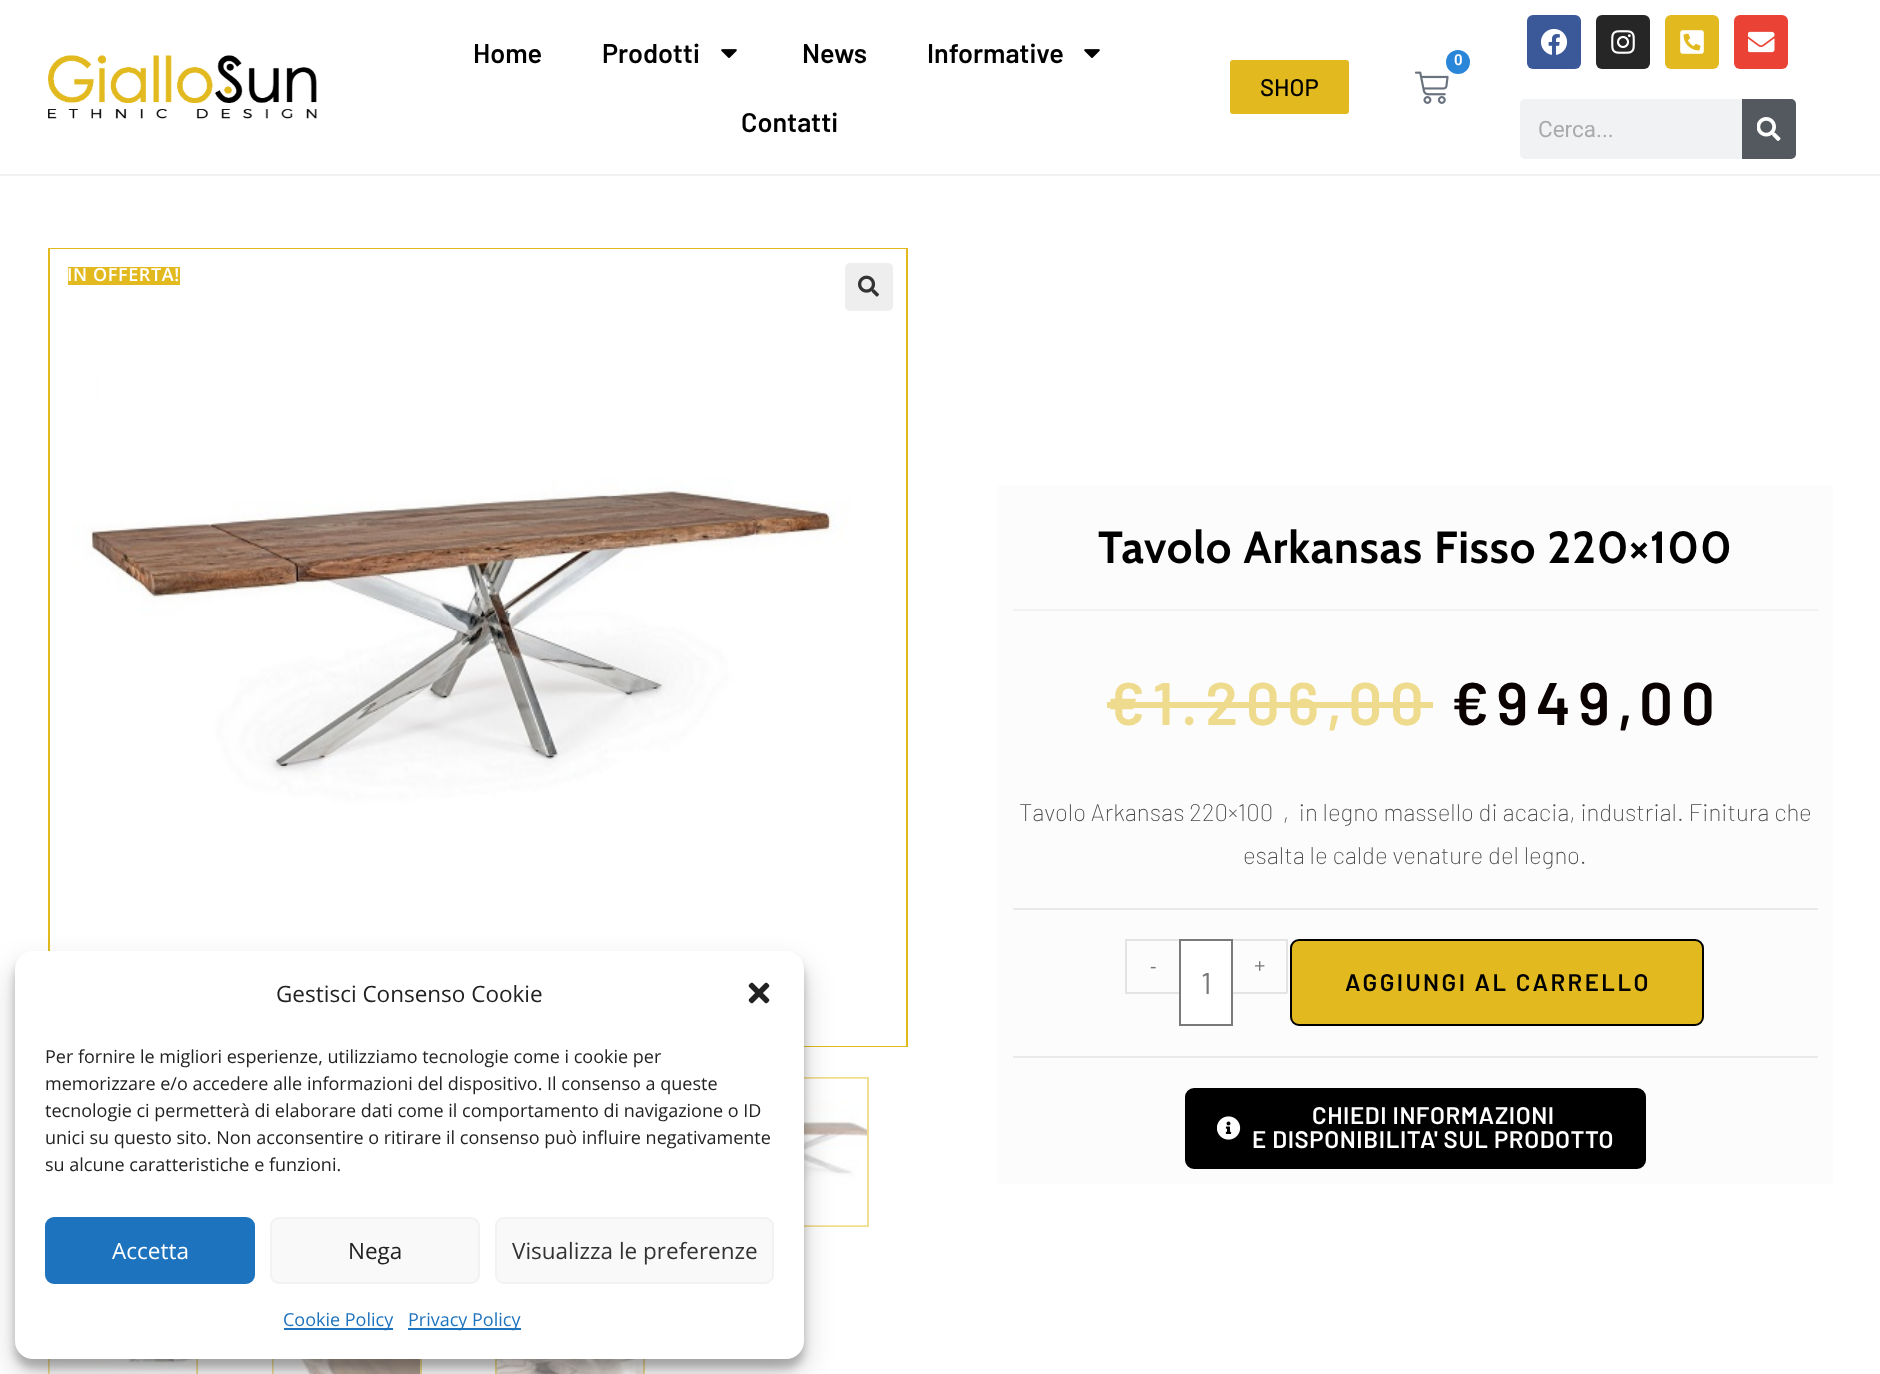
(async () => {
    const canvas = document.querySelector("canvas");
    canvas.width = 1880;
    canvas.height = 1374;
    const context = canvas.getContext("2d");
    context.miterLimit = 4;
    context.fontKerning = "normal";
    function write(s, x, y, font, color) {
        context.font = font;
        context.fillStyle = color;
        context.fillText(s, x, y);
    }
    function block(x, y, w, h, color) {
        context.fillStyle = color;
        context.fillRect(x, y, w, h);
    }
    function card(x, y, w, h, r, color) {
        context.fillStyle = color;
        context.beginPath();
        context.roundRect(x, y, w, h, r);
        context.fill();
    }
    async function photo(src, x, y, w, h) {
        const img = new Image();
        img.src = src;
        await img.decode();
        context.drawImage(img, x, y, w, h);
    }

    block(0, 0, 1880, 1374, "rgb(255, 255, 255)");
    block(0, 174, 1880, 2, "rgb(241, 241, 241)");
    await photo("media/1.png", 48, 55, 269, 64);
    write("Home", 473, 63, "600 27px Barlow", "rgb(0, 0, 0)");
    write("Prodotti", 602, 63, "600 27px Barlow", "rgb(0, 0, 0)");
    await photo("media/2.png", 721, 49, 16, 9);
    write("News", 802, 63, "600 27px Barlow", "rgb(0, 0, 0)");
    write("Informative", 927, 63, "600 27px Barlow", "rgb(0, 0, 0)");
    await photo("media/2.png", 1084, 49, 16, 9);
    write("Contatti", 741, 132, "600 27px Barlow", "rgb(0, 0, 0)");
    card(1230, 60, 119, 54, 3, "rgb(226, 186, 31)");
    write("SHOP", 1260, 96, "500 24px Barlow", "rgb(0, 0, 0)");
    await photo("media/3.png", 1415, 71, 34, 33);
    context.fillStyle = "rgb(42, 134, 216)";
    context.beginPath();
    context.arc(1458, 62, 12, 0, Math.PI * 2);
    context.fill();
    write("0", 1454, 65, "600 15px Roboto", "rgb(255, 255, 255)");
    card(1527, 15, 54, 54, 6, "rgb(59, 89, 152)");
    await photo("media/4.png", 1541, 29, 27, 26);
    card(1596, 15, 54, 54, 6, "rgb(38, 38, 38)");
    await photo("media/5.png", 1611, 30, 24, 24);
    card(1665, 15, 54, 54, 6, "rgb(226, 186, 31)");
    await photo("media/6.png", 1680, 30, 24, 24);
    card(1734, 15, 54, 54, 6, "rgb(234, 67, 53)");
    await photo("media/7.png", 1748, 31, 27, 22);
    card(1520, 99, 276, 60, 5, "rgb(241, 242, 243)");
    write("Cerca...", 1538, 137, "22.5px Roboto", "rgb(170, 170, 170)");
    context.fillStyle = "rgb(84, 89, 95)";
    context.beginPath();
    context.roundRect(1742, 99, 54, 60, [0, 5, 5, 0]);
    context.fill();
    await photo("media/8.png", 1757, 117, 24, 24);
    context.strokeStyle = "rgb(226, 186, 31)";
    context.lineWidth = 2;
    context.strokeRect(49, 249, 858, 797);
    await photo("media/9.png", 50, 249, 856, 797);
    card(845, 263, 48, 48, 5, "rgb(238, 238, 238)");
    await photo("media/10.png", 858, 275, 21, 22);
    context.strokeStyle = "rgb(241, 221, 143)";
    context.strokeRect(720, 1078, 148, 148);
    await photo("media/11.png", 804, 1078, 63, 148);
    context.strokeRect(49, 1251, 148, 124);
    await photo("media/12.png", 49, 1359, 148, 15);
    context.strokeRect(273, 1251, 148, 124);
    await photo("media/13.png", 273, 1359, 147, 15);
    context.strokeRect(496, 1251, 148, 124);
    await photo("media/14.png", 496, 1359, 148, 15);
    block(68, 267, 112, 18, "rgb(226, 186, 31)");
    context.letterSpacing = "0.6px";
    write("IN OFFERTA!", 67, 281, "600 18px Open Sans", "rgb(255, 255, 255)");
    block(998, 486, 835, 698, "rgb(252, 252, 252)");
    block(1013, 609, 805, 2, "rgb(241, 241, 241)");
    context.letterSpacing = "0.9px";
    write("Tavolo Arkansas Fisso 220×100", 1098, 563, "bold 45px Cabin", "rgb(0, 0, 0)");
    context.letterSpacing = "7.5px";
    write("€1.206,00", 1107, 725, "600 60px Barlow", "rgb(239, 219, 142)");
    block(1107, 702, 326, 6, "rgb(239, 219, 142)");
    write("€949,00", 1451, 725, "600 60px Barlow", "rgb(10, 1, 1)");
    context.letterSpacing = "0px";
    write("Tavolo Arkansas 220×100  ,  in legno massello di acacia, industrial. Finitura che", 1019, 821, "200 24px Barlow", "rgb(74, 74, 74)");
    write("esalta le calde venature del legno.", 1243, 864, "200 24px Barlow", "rgb(74, 74, 74)");
    block(1013, 908, 805, 2, "rgb(234, 234, 234)");
    block(1013, 1056, 805, 2, "rgb(234, 234, 234)");
    block(1125, 939, 54, 2, "rgb(228, 228, 228)");
    block(1125, 992, 54, 2, "rgb(228, 228, 228)");
    block(1125, 939, 2, 54, "rgb(228, 228, 228)");
    write("-", 1150, 973, "20px Open Sans", "rgb(119, 119, 119)");
    block(1233, 939, 54, 2, "rgb(228, 228, 228)");
    block(1286, 939, 2, 54, "rgb(228, 228, 228)");
    block(1233, 992, 54, 2, "rgb(228, 228, 228)");
    write("+", 1254, 973, "20px Open Sans", "rgb(119, 119, 119)");
    context.fillStyle = "rgb(255, 255, 255)";
    context.beginPath();
    context.rect(1180, 940, 52, 85);
    context.fill();
    context.strokeStyle = "rgb(122, 122, 122)";
    context.stroke();
    write("1", 1201, 994, "30px Barlow", "rgb(119, 119, 119)");
    context.fillStyle = "rgb(226, 186, 31)";
    context.beginPath();
    context.roundRect(1291, 940, 412, 85, 8);
    context.fill();
    context.strokeStyle = "rgb(0, 0, 0)";
    context.stroke();
    context.letterSpacing = "2.4px";
    write("AGGIUNGI AL CARRELLO", 1345, 991, "600 24px Barlow", "rgb(0, 0, 0)");
    context.beginPath();
    context.roundRect(1186, 1089, 459, 79, 8);
    context.fill();
    context.stroke();
    await photo("media/15.png", 1217, 1116, 24, 24);
    context.letterSpacing = "0.6px";
    write("CHIEDI INFORMAZIONI", 1312, 1124, "600 24px Barlow", "rgb(255, 255, 255)");
    write("E DISPONIBILITA' SUL PRODOTTO", 1252, 1148, "600 24px Barlow", "rgb(255, 255, 255)");
    context.fillStyle = "rgba(0, 0, 0, 0.23)";
    context.filter = "blur(4.5px)";
    context.beginPath();
    context.roundRect(15, 960, 789, 408, 18);
    context.fill();
    context.filter = "none";
    context.fillStyle = "rgba(0, 0, 0, 0.19)";
    context.filter = "blur(15px)";
    context.beginPath();
    context.roundRect(15, 966, 789, 408, 18);
    context.fill();
    context.filter = "none";
    card(15, 951, 789, 408, 18, "rgb(255, 255, 255)");
    context.letterSpacing = "0px";
    write("Gestisci Consenso Cookie", 276, 1002, "22.5px Open Sans", "rgb(34, 34, 34)");
    await photo("media/16.png", 748, 982, 22, 22);
    write("Per fornire le migliori esperienze, utilizziamo tecnologie come i cookie per", 45, 1063, "18px Open Sans", "rgb(34, 34, 34)");
    write("memorizzare e/o accedere alle informazioni del dispositivo. Il consenso a queste", 45, 1090, "18px Open Sans", "rgb(34, 34, 34)");
    write("tecnologie ci permetterà di elaborare dati come il comportamento di navigazione o ID", 45, 1117, "18px Open Sans", "rgb(34, 34, 34)");
    write("unici su questo sito. Non acconsentire o ritirare il consenso può influire negativamente", 45, 1144, "18px Open Sans", "rgb(34, 34, 34)");
    write("su alcune caratteristiche e funzioni.", 45, 1171, "18px Open Sans", "rgb(34, 34, 34)");
    context.fillStyle = "rgb(30, 115, 190)";
    context.beginPath();
    context.roundRect(46, 1218, 208, 65, 8);
    context.fill();
    context.strokeStyle = "rgb(30, 115, 190)";
    context.stroke();
    write("Accetta", 112, 1259, "22.5px Open Sans", "rgb(255, 255, 255)");
    context.fillStyle = "rgb(249, 249, 249)";
    context.beginPath();
    context.roundRect(271, 1218, 208, 65, 8);
    context.fill();
    context.strokeStyle = "rgb(242, 242, 242)";
    context.stroke();
    write("Nega", 348, 1259, "22.5px Open Sans", "rgb(34, 34, 34)");
    context.fillStyle = "rgb(249, 249, 249)";
    context.beginPath();
    context.roundRect(496, 1218, 277, 65, 8);
    context.fill();
    context.stroke();
    write("Visualizza le preferenze", 512, 1259, "22.5px Open Sans", "rgb(51, 51, 51)");
    block(284, 1328, 109, 2, "rgb(30, 115, 190)");
    write("Cookie Policy", 283, 1326, "18px Open Sans", "rgb(30, 115, 190)");
    block(408, 1328, 113, 2, "rgb(30, 115, 190)");
    write("Privacy Policy", 408, 1326, "18px Open Sans", "rgb(30, 115, 190)");
})();
